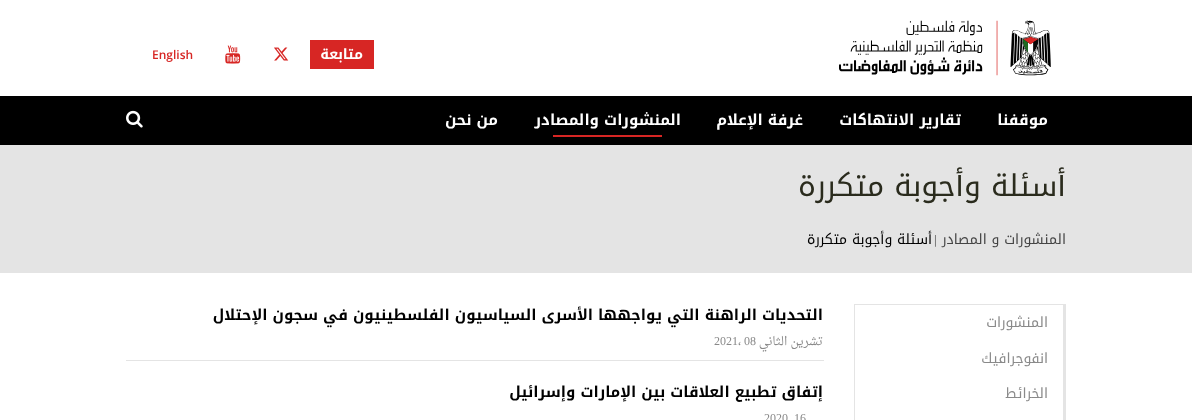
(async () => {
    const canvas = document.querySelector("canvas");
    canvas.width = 1192;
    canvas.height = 420;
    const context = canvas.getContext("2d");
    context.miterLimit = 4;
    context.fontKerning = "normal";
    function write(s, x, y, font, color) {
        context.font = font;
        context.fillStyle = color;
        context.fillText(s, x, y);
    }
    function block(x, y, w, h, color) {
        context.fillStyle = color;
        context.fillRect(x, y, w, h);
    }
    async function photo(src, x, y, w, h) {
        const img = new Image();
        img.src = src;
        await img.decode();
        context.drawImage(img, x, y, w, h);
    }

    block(0, 0, 1192, 420, "rgb(255, 255, 255)");
    await photo("media/1.png", 839, 20, 212, 56);
    block(310, 40, 64, 29, "rgb(215, 38, 36)");
    context.direction = "rtl";
    write("متابعة", 363, 59, "bold 14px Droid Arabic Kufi", "rgb(255, 255, 255)");
    await photo("media/2.png", 274, 47, 15, 14);
    await photo("media/3.png", 225, 45, 16, 19);
    context.direction = "ltr";
    write("English", 152, 59, "600 12px Open Sans", "rgb(215, 38, 36)");
    block(0, 96, 1192, 49, "rgb(0, 0, 0)");
    context.direction = "rtl";
    write("موقفنا", 1048, 125, "bold 15px Droid Arabic Kufi", "rgb(255, 255, 255)");
    write("تقارير الانتهاكات", 961, 125, "bold 15px Droid Arabic Kufi", "rgb(255, 255, 255)");
    write("غرفة الإعلام", 803, 125, "bold 15px Droid Arabic Kufi", "rgb(255, 255, 255)");
    write("المنشورات والمصادر", 681, 125, "bold 15px Droid Arabic Kufi", "rgb(255, 255, 255)");
    block(553, 135, 109, 2, "rgb(215, 38, 36)");
    write("من نحن", 498, 125, "bold 15px Droid Arabic Kufi", "rgb(255, 255, 255)");
    await photo("media/4.png", 126, 110, 17, 18);
    block(0, 145, 1192, 128, "rgb(228, 228, 228)");
    write("أسئلة وأجوبة متكررة", 1066, 196, "30px Droid Arabic Kufi", "rgb(42, 43, 29)");
    write("المنشورات و المصادر", 1066, 244, "14px Droid Arabic Kufi", "rgb(68, 68, 68)");
    context.direction = "ltr";
    write("|", 934, 244, "13px Liberation Serif", "rgb(68, 68, 68)");
    context.direction = "rtl";
    write("أسئلة وأجوبة متكررة", 932, 244, "14px Droid Arabic Kufi", "rgb(0, 0, 0)");
    block(854, 304, 212, 1, "rgb(228, 228, 228)");
    block(854, 304, 1, 116, "rgb(228, 228, 228)");
    block(1063, 305, 3, 115, "rgb(228, 228, 228)");
    write("المنشورات", 1048, 327, "14px Droid Arabic Kufi", "rgb(137, 137, 137)");
    write("انفوجرافيك", 1048, 363, "14px Droid Arabic Kufi", "rgb(137, 137, 137)");
    write("الخرائط", 1048, 398, "14px Droid Arabic Kufi", "rgb(137, 137, 137)");
    block(126, 360, 698, 1, "rgb(228, 228, 228)");
    write("التحديات الراهنة التي يواجهها الأسرى السياسيون الفلسطينيون في سجون الإحتلال", 823, 320, "bold 15px Droid Arabic Kufi", "rgb(0, 0, 0)");
    write("تشرين الثاني", 823, 345, "12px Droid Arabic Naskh", "rgb(137, 137, 137)");
    context.direction = "ltr";
    write("08", 744, 345, "12px Liberation Serif", "rgb(137, 137, 137)");
    write("،", 738, 345, "12px Droid Arabic Naskh", "rgb(137, 137, 137)");
    write("2021", 714, 345, "12px Liberation Serif", "rgb(137, 137, 137)");
    context.direction = "rtl";
    write("إتفاق تطبيع العلاقات بين الإمارات وإسرائيل", 823, 397, "bold 15px Droid Arabic Kufi", "rgb(0, 0, 0)");
    context.direction = "ltr";
    write("16", 794, 422, "12px Liberation Serif", "rgb(137, 137, 137)");
    write("2020", 764, 422, "12px Liberation Serif", "rgb(137, 137, 137)");
})();
